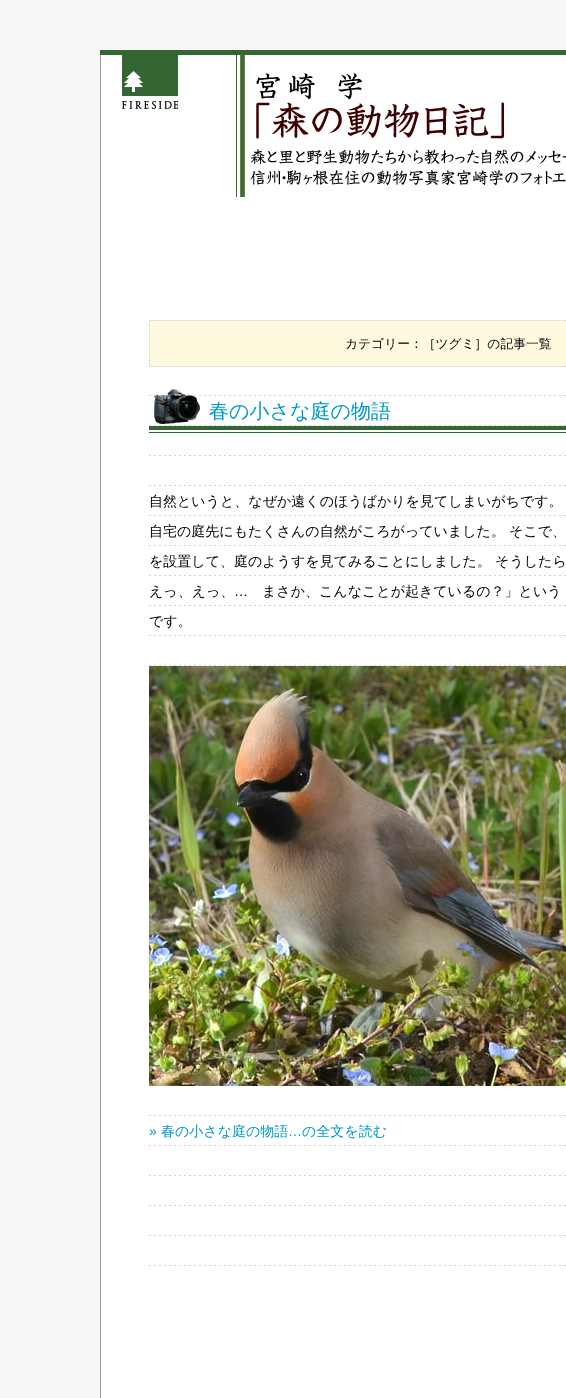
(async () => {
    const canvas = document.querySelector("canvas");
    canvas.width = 566;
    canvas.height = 1398;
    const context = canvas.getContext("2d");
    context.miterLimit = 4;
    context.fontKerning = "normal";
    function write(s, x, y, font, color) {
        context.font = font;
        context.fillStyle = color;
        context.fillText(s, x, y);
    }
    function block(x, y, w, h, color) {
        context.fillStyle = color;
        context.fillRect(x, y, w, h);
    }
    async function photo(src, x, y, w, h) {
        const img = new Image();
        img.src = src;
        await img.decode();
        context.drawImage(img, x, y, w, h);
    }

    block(0, 0, 566, 1398, "rgb(246, 246, 246)");
    block(100, 50, 1, 1348, "rgb(153, 153, 153)");
    block(100, 50, 466, 5, "rgb(51, 102, 51)");
    block(101, 55, 465, 1343, "rgb(255, 255, 255)");
    await photo("media/1.png", 122, 55, 56, 54);
    await photo("media/2.png", 236, 55, 9, 142);
    await photo("media/3.png", 256, 73, 248, 66);
    await photo("media/4.png", 250, 149, 316, 37);
    await photo("media/5.png", 149, 395, 417, 871);
    block(149, 320, 417, 47, "rgb(255, 249, 222)");
    context.beginPath();
    context.moveTo(149, 320.5);
    context.lineTo(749, 320.5);
    context.strokeStyle = "rgb(204, 204, 204)";
    context.setLineDash([1, 1]);
    context.stroke();
    context.beginPath();
    context.moveTo(149, 366.5);
    context.lineTo(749, 366.5);
    context.stroke();
    context.beginPath();
    context.moveTo(149.5, 320);
    context.lineTo(149.5, 367);
    context.stroke();
    write("カテゴリー：［ツグミ］の記事一覧", 345, 348, "500 12.75px WenQuanYi Zen Hei", "rgb(0, 0, 0)");
    await photo("media/6.png", 154, 389, 46, 35);
    write("春の小さな庭の物語", 209, 418, "500 20px WenQuanYi Zen Hei", "rgb(0, 153, 204)");
    await photo("media/7.png", 149, 426, 417, 7);
    write("自然というと、なぜか遠くのほうばかりを見てしまいがちです。", 149, 506, "500 14px WenQuanYi Zen Hei", "rgb(0, 0, 0)");
    write("自宅の庭先にもたくさんの自然がころがっていました。 そこで、", 149, 536, "500 14px WenQuanYi Zen Hei", "rgb(0, 0, 0)");
    write("を設置して、庭のようすを見てみることにしました。 そうしたら", 149, 566, "500 14px WenQuanYi Zen Hei", "rgb(0, 0, 0)");
    write("えっ、えっ、", 149, 596, "500 14px WenQuanYi Zen Hei", "rgb(0, 0, 0)");
    write("…", 234, 596, "14px Liberation Sans", "rgb(0, 0, 0)");
    write("まさか、こんなことが起きているの？」という", 262, 596, "500 14px WenQuanYi Zen Hei", "rgb(0, 0, 0)");
    write("です。", 149, 626, "500 14px WenQuanYi Zen Hei", "rgb(0, 0, 0)");
    await photo("media/8.png", 149, 666, 417, 420);
    write("»", 149, 1136, "14px Liberation Sans", "rgb(0, 153, 204)");
    write("春の小さな庭の物語", 161, 1136, "500 14px WenQuanYi Zen Hei", "rgb(0, 153, 204)");
    write("…", 288, 1136, "14px Liberation Sans", "rgb(0, 153, 204)");
    write("の全文を読む", 302, 1136, "500 14px WenQuanYi Zen Hei", "rgb(0, 153, 204)");
})();
